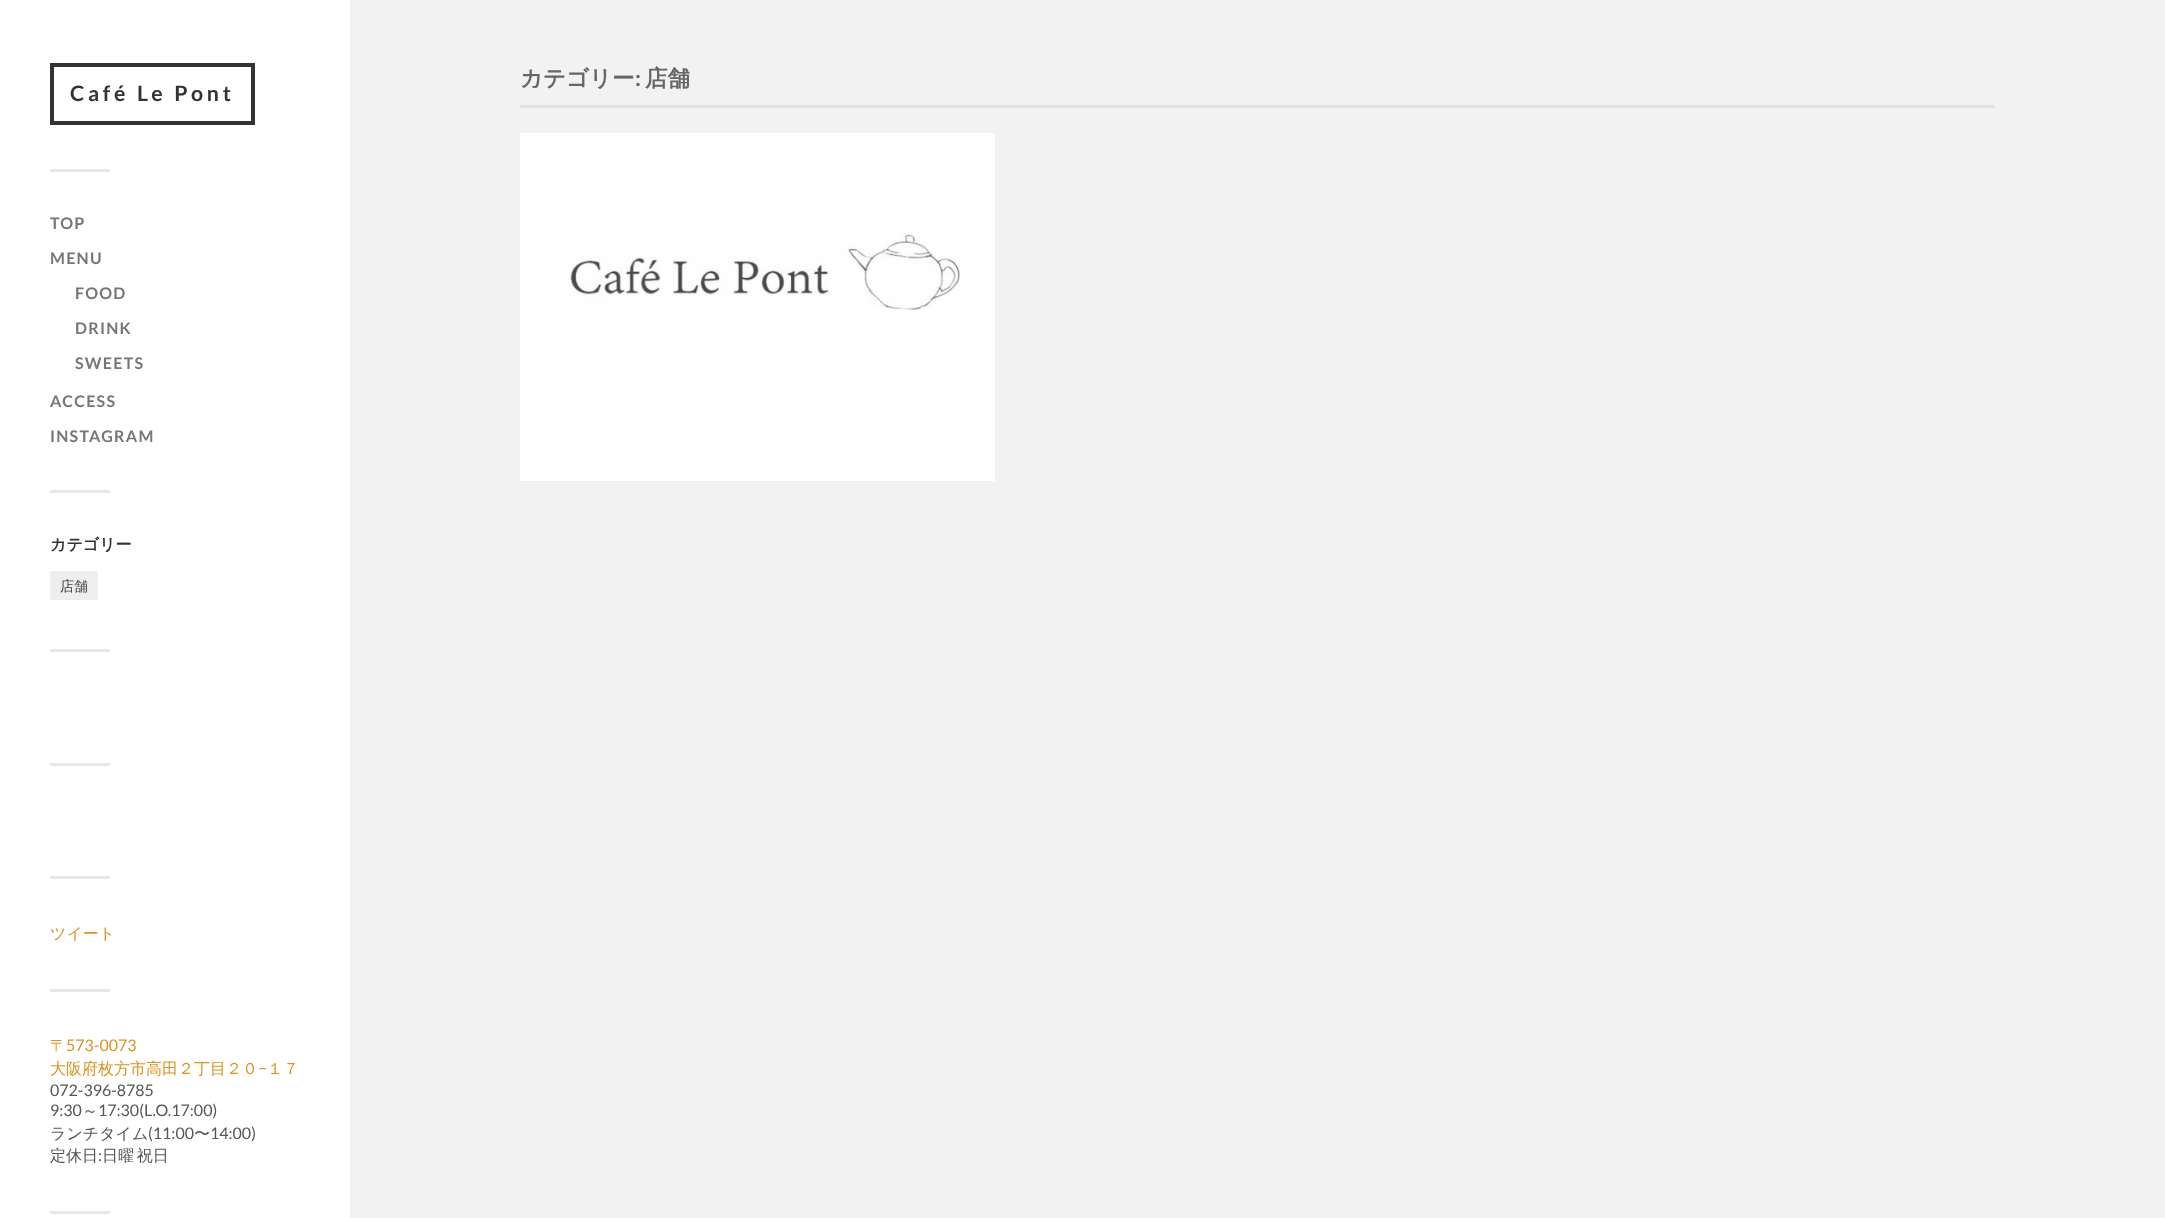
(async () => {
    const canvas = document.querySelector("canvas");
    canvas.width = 2165;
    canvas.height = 1218;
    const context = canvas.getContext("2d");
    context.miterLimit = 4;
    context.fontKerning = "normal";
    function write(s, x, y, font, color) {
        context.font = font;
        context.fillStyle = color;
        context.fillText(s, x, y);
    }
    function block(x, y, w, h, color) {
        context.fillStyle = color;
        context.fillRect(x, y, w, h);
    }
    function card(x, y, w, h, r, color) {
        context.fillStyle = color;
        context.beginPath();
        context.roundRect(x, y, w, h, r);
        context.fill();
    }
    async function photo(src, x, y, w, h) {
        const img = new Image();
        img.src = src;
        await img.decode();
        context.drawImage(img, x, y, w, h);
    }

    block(0, 0, 2165, 1218, "rgb(242, 242, 242)");
    block(520, 105, 1475, 3, "rgb(225, 225, 225)");
    write("カテゴリー", 520, 86, "bold 22.5px WenQuanYi Zen Hei", "rgb(102, 102, 102)");
    write(":", 635, 86, "bold 22.5px Lato", "rgb(102, 102, 102)");
    write("店舗", 645, 86, "bold 22.5px WenQuanYi Zen Hei", "rgb(102, 102, 102)");
    block(520, 133, 475, 348, "rgb(255, 255, 255)");
    await photo("media/1.png", 569, 233, 391, 77);
    block(0, 0, 350, 1218, "rgb(255, 255, 255)");
    context.strokeStyle = "rgb(51, 51, 51)";
    context.lineWidth = 4;
    context.strokeRect(52, 65, 201, 58);
    context.letterSpacing = "3.75px";
    write("Café Le Pont", 70, 101, "bold 21.25px Lato", "rgb(51, 51, 51)");
    block(50, 169, 60, 3, "rgb(231, 231, 231)");
    context.letterSpacing = "1.25px";
    write("TOP", 50, 229, "bold 16px Lato", "rgb(118, 118, 118)");
    write("MENU", 50, 264, "bold 16px Lato", "rgb(118, 118, 118)");
    write("FOOD", 75, 299, "bold 16px Lato", "rgb(118, 118, 118)");
    write("DRINK", 75, 334, "bold 16px Lato", "rgb(118, 118, 118)");
    write("SWEETS", 75, 369, "bold 16px Lato", "rgb(118, 118, 118)");
    write("ACCESS", 50, 407, "bold 16px Lato", "rgb(118, 118, 118)");
    write("INSTAGRAM", 50, 442, "bold 16px Lato", "rgb(118, 118, 118)");
    block(50, 490, 60, 3, "rgb(231, 231, 231)");
    context.letterSpacing = "0px";
    write("カテゴリー", 50, 550, "bold 16px WenQuanYi Zen Hei", "rgb(51, 51, 51)");
    card(50, 571, 48, 29, 2.5, "rgb(238, 238, 238)");
    write("店舗", 60, 591, "500 14px WenQuanYi Zen Hei", "rgb(68, 68, 68)");
    block(50, 649, 60, 3, "rgb(231, 231, 231)");
    block(50, 763, 60, 3, "rgb(231, 231, 231)");
    block(50, 876, 60, 3, "rgb(231, 231, 231)");
    write("ツイート", 50, 939, "500 16px WenQuanYi Zen Hei", "rgb(221, 145, 31)");
    block(50, 989, 60, 3, "rgb(231, 231, 231)");
    write("〒", 50, 1051, "500 16px WenQuanYi Zen Hei", "rgb(221, 145, 31)");
    write("573-0073", 66, 1051, "16px Lato", "rgb(221, 145, 31)");
    write("大阪府枚方市高田２丁目２０", 50, 1074, "500 16px WenQuanYi Zen Hei", "rgb(221, 145, 31)");
    write("−", 258, 1074, "16px Lato", "rgb(221, 145, 31)");
    write("１７", 267, 1074, "500 16px WenQuanYi Zen Hei", "rgb(221, 145, 31)");
    write("072-396-8785", 50, 1096, "16px Lato", "rgb(85, 85, 85)");
    write("9:30", 50, 1116, "16px Lato", "rgb(85, 85, 85)");
    write("～", 82, 1116, "500 16px WenQuanYi Zen Hei", "rgb(85, 85, 85)");
    write("17:30(L.O.17:00)", 98, 1116, "16px Lato", "rgb(85, 85, 85)");
    write("ランチタイム", 50, 1139, "500 16px WenQuanYi Zen Hei", "rgb(85, 85, 85)");
    write("(11:00", 148, 1139, "16px Lato", "rgb(85, 85, 85)");
    write("〜", 194, 1139, "500 16px WenQuanYi Zen Hei", "rgb(85, 85, 85)");
    write("14:00)", 210, 1139, "16px Lato", "rgb(85, 85, 85)");
    write("定休日", 50, 1161, "500 16px WenQuanYi Zen Hei", "rgb(85, 85, 85)");
    write(":", 98, 1161, "16px Lato", "rgb(85, 85, 85)");
    context.wordSpacing = "-2px";
    write("日曜 祝日", 102, 1161, "500 16px WenQuanYi Zen Hei", "rgb(85, 85, 85)");
    block(50, 1211, 60, 3, "rgb(231, 231, 231)");
})();
